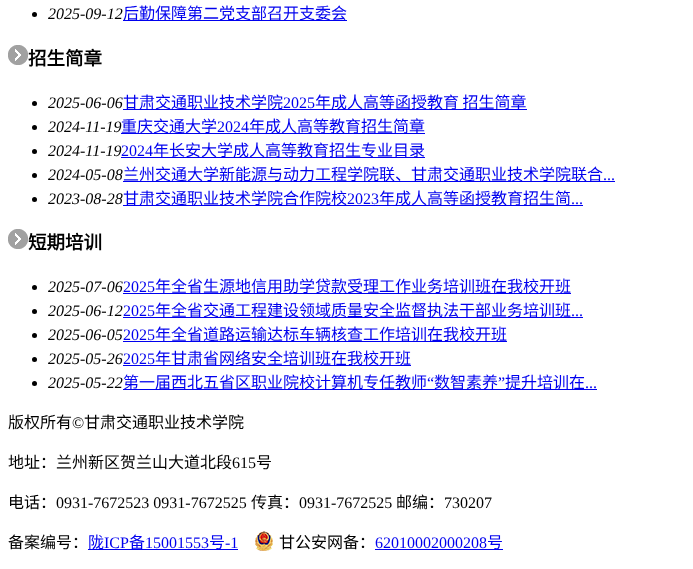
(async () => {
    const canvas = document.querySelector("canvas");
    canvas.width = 693;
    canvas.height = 569;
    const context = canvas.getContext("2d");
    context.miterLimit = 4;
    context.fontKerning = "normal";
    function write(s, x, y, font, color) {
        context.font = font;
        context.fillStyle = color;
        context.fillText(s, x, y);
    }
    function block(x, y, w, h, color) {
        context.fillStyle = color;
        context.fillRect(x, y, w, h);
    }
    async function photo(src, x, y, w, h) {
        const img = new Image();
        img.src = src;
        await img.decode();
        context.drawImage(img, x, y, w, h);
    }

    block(0, 0, 693, 569, "rgb(255, 255, 255)");
    context.fillStyle = "rgb(0, 0, 0)";
    context.beginPath();
    context.arc(34.5, 14.5, 2.5, 0, Math.PI * 2);
    context.fill();
    write("2025-09-12", 48, 19, "italic 16px Liberation Serif", "rgb(0, 0, 0)");
    block(123, 20, 224, 1, "rgb(0, 0, 238)");
    write("后勤保障第二党支部召开支委会", 123, 19, "16px Noto Sans CJK SC", "rgb(0, 0, 238)");
    await photo("media/1.png", 8, 45, 20, 20);
    write("招生简章", 28, 65, "bold 18.5px Noto Sans CJK SC", "rgb(0, 0, 0)");
    context.beginPath();
    context.arc(34.5, 103.5, 2.5, 0, Math.PI * 2);
    context.fill();
    write("2025-06-06", 48, 108, "italic 16px Liberation Serif", "rgb(0, 0, 0)");
    block(123, 109, 404, 1, "rgb(0, 0, 238)");
    write("甘肃交通职业技术学院", 123, 108, "16px Noto Sans CJK SC", "rgb(0, 0, 238)");
    write("2025", 283, 108, "16px Liberation Serif", "rgb(0, 0, 238)");
    write("年成人高等函授教育 招生简章", 315, 108, "16px Noto Sans CJK SC", "rgb(0, 0, 238)");
    context.fillStyle = "rgb(0, 0, 0)";
    context.beginPath();
    context.arc(34.5, 127.5, 2.5, 0, Math.PI * 2);
    context.fill();
    write("2024-11-19", 48, 132, "italic 16px Liberation Serif", "rgb(0, 0, 0)");
    block(121, 133, 304, 1, "rgb(0, 0, 238)");
    write("重庆交通大学", 121, 132, "16px Noto Sans CJK SC", "rgb(0, 0, 238)");
    write("2024", 217, 132, "16px Liberation Serif", "rgb(0, 0, 238)");
    write("年成人高等教育招生简章", 249, 132, "16px Noto Sans CJK SC", "rgb(0, 0, 238)");
    context.fillStyle = "rgb(0, 0, 0)";
    context.beginPath();
    context.arc(34.5, 151.5, 2.5, 0, Math.PI * 2);
    context.fill();
    write("2024-11-19", 48, 156, "italic 16px Liberation Serif", "rgb(0, 0, 0)");
    write("2024", 121, 156, "16px Liberation Serif", "rgb(0, 0, 238)");
    block(121, 157, 304, 1, "rgb(0, 0, 238)");
    write("年长安大学成人高等教育招生专业目录", 153, 156, "16px Noto Sans CJK SC", "rgb(0, 0, 238)");
    context.fillStyle = "rgb(0, 0, 0)";
    context.beginPath();
    context.arc(34.5, 175.5, 2.5, 0, Math.PI * 2);
    context.fill();
    write("2024-05-08", 48, 180, "italic 16px Liberation Serif", "rgb(0, 0, 0)");
    block(123, 181, 492, 1, "rgb(0, 0, 238)");
    write("兰州交通大学新能源与动力工程学院联、甘肃交通职业技术学院联合", 123, 180, "16px Noto Sans CJK SC", "rgb(0, 0, 238)");
    write("...", 603, 180, "16px Liberation Serif", "rgb(0, 0, 238)");
    context.fillStyle = "rgb(0, 0, 0)";
    context.beginPath();
    context.arc(34.5, 199.5, 2.5, 0, Math.PI * 2);
    context.fill();
    write("2023-08-28", 48, 204, "italic 16px Liberation Serif", "rgb(0, 0, 0)");
    block(123, 205, 460, 1, "rgb(0, 0, 238)");
    write("甘肃交通职业技术学院合作院校", 123, 204, "16px Noto Sans CJK SC", "rgb(0, 0, 238)");
    write("2023", 347, 204, "16px Liberation Serif", "rgb(0, 0, 238)");
    write("年成人高等函授教育招生简", 379, 204, "16px Noto Sans CJK SC", "rgb(0, 0, 238)");
    write("...", 571, 204, "16px Liberation Serif", "rgb(0, 0, 238)");
    await photo("media/1.png", 8, 229, 20, 20);
    write("短期培训", 28, 249, "bold 18.5px Noto Sans CJK SC", "rgb(0, 0, 0)");
    context.beginPath();
    context.arc(34.5, 287.5, 2.5, 0, Math.PI * 2);
    context.fill();
    write("2025-07-06", 48, 292, "italic 16px Liberation Serif", "rgb(0, 0, 0)");
    write("2025", 123, 292, "16px Liberation Serif", "rgb(0, 0, 238)");
    block(123, 293, 448, 1, "rgb(0, 0, 238)");
    write("年全省生源地信用助学贷款受理工作业务培训班在我校开班", 155, 292, "16px Noto Sans CJK SC", "rgb(0, 0, 238)");
    context.fillStyle = "rgb(0, 0, 0)";
    context.beginPath();
    context.arc(34.5, 311.5, 2.5, 0, Math.PI * 2);
    context.fill();
    write("2025-06-12", 48, 316, "italic 16px Liberation Serif", "rgb(0, 0, 0)");
    write("2025", 123, 316, "16px Liberation Serif", "rgb(0, 0, 238)");
    block(123, 317, 460, 1, "rgb(0, 0, 238)");
    write("年全省交通工程建设领域质量安全监督执法干部业务培训班", 155, 316, "16px Noto Sans CJK SC", "rgb(0, 0, 238)");
    write("...", 571, 316, "16px Liberation Serif", "rgb(0, 0, 238)");
    context.fillStyle = "rgb(0, 0, 0)";
    context.beginPath();
    context.arc(34.5, 335.5, 2.5, 0, Math.PI * 2);
    context.fill();
    write("2025-06-05", 48, 340, "italic 16px Liberation Serif", "rgb(0, 0, 0)");
    write("2025", 123, 340, "16px Liberation Serif", "rgb(0, 0, 238)");
    block(123, 341, 384, 1, "rgb(0, 0, 238)");
    write("年全省道路运输达标车辆核查工作培训在我校开班", 155, 340, "16px Noto Sans CJK SC", "rgb(0, 0, 238)");
    context.fillStyle = "rgb(0, 0, 0)";
    context.beginPath();
    context.arc(34.5, 359.5, 2.5, 0, Math.PI * 2);
    context.fill();
    write("2025-05-26", 48, 364, "italic 16px Liberation Serif", "rgb(0, 0, 0)");
    write("2025", 123, 364, "16px Liberation Serif", "rgb(0, 0, 238)");
    block(123, 365, 288, 1, "rgb(0, 0, 238)");
    write("年甘肃省网络安全培训班在我校开班", 155, 364, "16px Noto Sans CJK SC", "rgb(0, 0, 238)");
    write("2025-05-22", 48, 388, "italic 16px Liberation Serif", "rgb(0, 0, 0)");
    block(123, 389, 474, 1, "rgb(0, 0, 238)");
    write("第一届西北五省区职业院校计算机专任教师", 123, 388, "16px Noto Sans CJK SC", "rgb(0, 0, 238)");
    write("“", 427, 388, "16px Liberation Serif", "rgb(0, 0, 238)");
    write("数智素养", 434, 388, "16px Noto Sans CJK SC", "rgb(0, 0, 238)");
    write("”", 498, 388, "16px Liberation Serif", "rgb(0, 0, 238)");
    write("提升培训在", 505, 388, "16px Noto Sans CJK SC", "rgb(0, 0, 238)");
    context.fillStyle = "rgb(0, 0, 0)";
    context.beginPath();
    context.arc(34.5, 383.5, 2.5, 0, Math.PI * 2);
    context.fill();
    write("...", 585, 388, "16px Liberation Serif", "rgb(0, 0, 238)");
    write("版权所有", 8, 428, "16px Noto Sans CJK SC", "rgb(0, 0, 0)");
    write("©", 72, 428, "16px Liberation Serif", "rgb(0, 0, 0)");
    write("甘肃交通职业技术学院", 84, 428, "16px Noto Sans CJK SC", "rgb(0, 0, 0)");
    write("地址：兰州新区贺兰山大道北段", 8, 468, "16px Noto Sans CJK SC", "rgb(0, 0, 0)");
    write("615", 232, 468, "16px Liberation Serif", "rgb(0, 0, 0)");
    write("号", 256, 468, "16px Noto Sans CJK SC", "rgb(0, 0, 0)");
    write("电话：", 8, 508, "16px Noto Sans CJK SC", "rgb(0, 0, 0)");
    write("0931-7672523 0931-7672525", 56, 508, "16px Liberation Serif", "rgb(0, 0, 0)");
    write("传真：", 251, 508, "16px Noto Sans CJK SC", "rgb(0, 0, 0)");
    write("0931-7672525", 299, 508, "16px Liberation Serif", "rgb(0, 0, 0)");
    write("邮编：", 396, 508, "16px Noto Sans CJK SC", "rgb(0, 0, 0)");
    write("730207", 444, 508, "16px Liberation Serif", "rgb(0, 0, 0)");
    write("备案编号：", 8, 548, "16px Noto Sans CJK SC", "rgb(0, 0, 0)");
    block(88, 549, 150, 1, "rgb(0, 0, 238)");
    write("陇", 88, 548, "16px Noto Sans CJK SC", "rgb(0, 0, 238)");
    write("ICP", 104, 548, "16px Liberation Serif", "rgb(0, 0, 238)");
    write("备", 129, 548, "16px Noto Sans CJK SC", "rgb(0, 0, 238)");
    write("15001553", 145, 548, "16px Liberation Serif", "rgb(0, 0, 238)");
    write("号", 209, 548, "16px Noto Sans CJK SC", "rgb(0, 0, 238)");
    write("-1", 225, 548, "16px Liberation Serif", "rgb(0, 0, 238)");
    await photo("media/2.png", 255, 531, 18, 20);
    write("甘公安网备：", 279, 548, "16px Noto Sans CJK SC", "rgb(0, 0, 0)");
    write("62010002000208", 375, 548, "16px Liberation Serif", "rgb(0, 0, 238)");
    block(375, 549, 128, 1, "rgb(0, 0, 238)");
    write("号", 487, 548, "16px Noto Sans CJK SC", "rgb(0, 0, 238)");
})();
